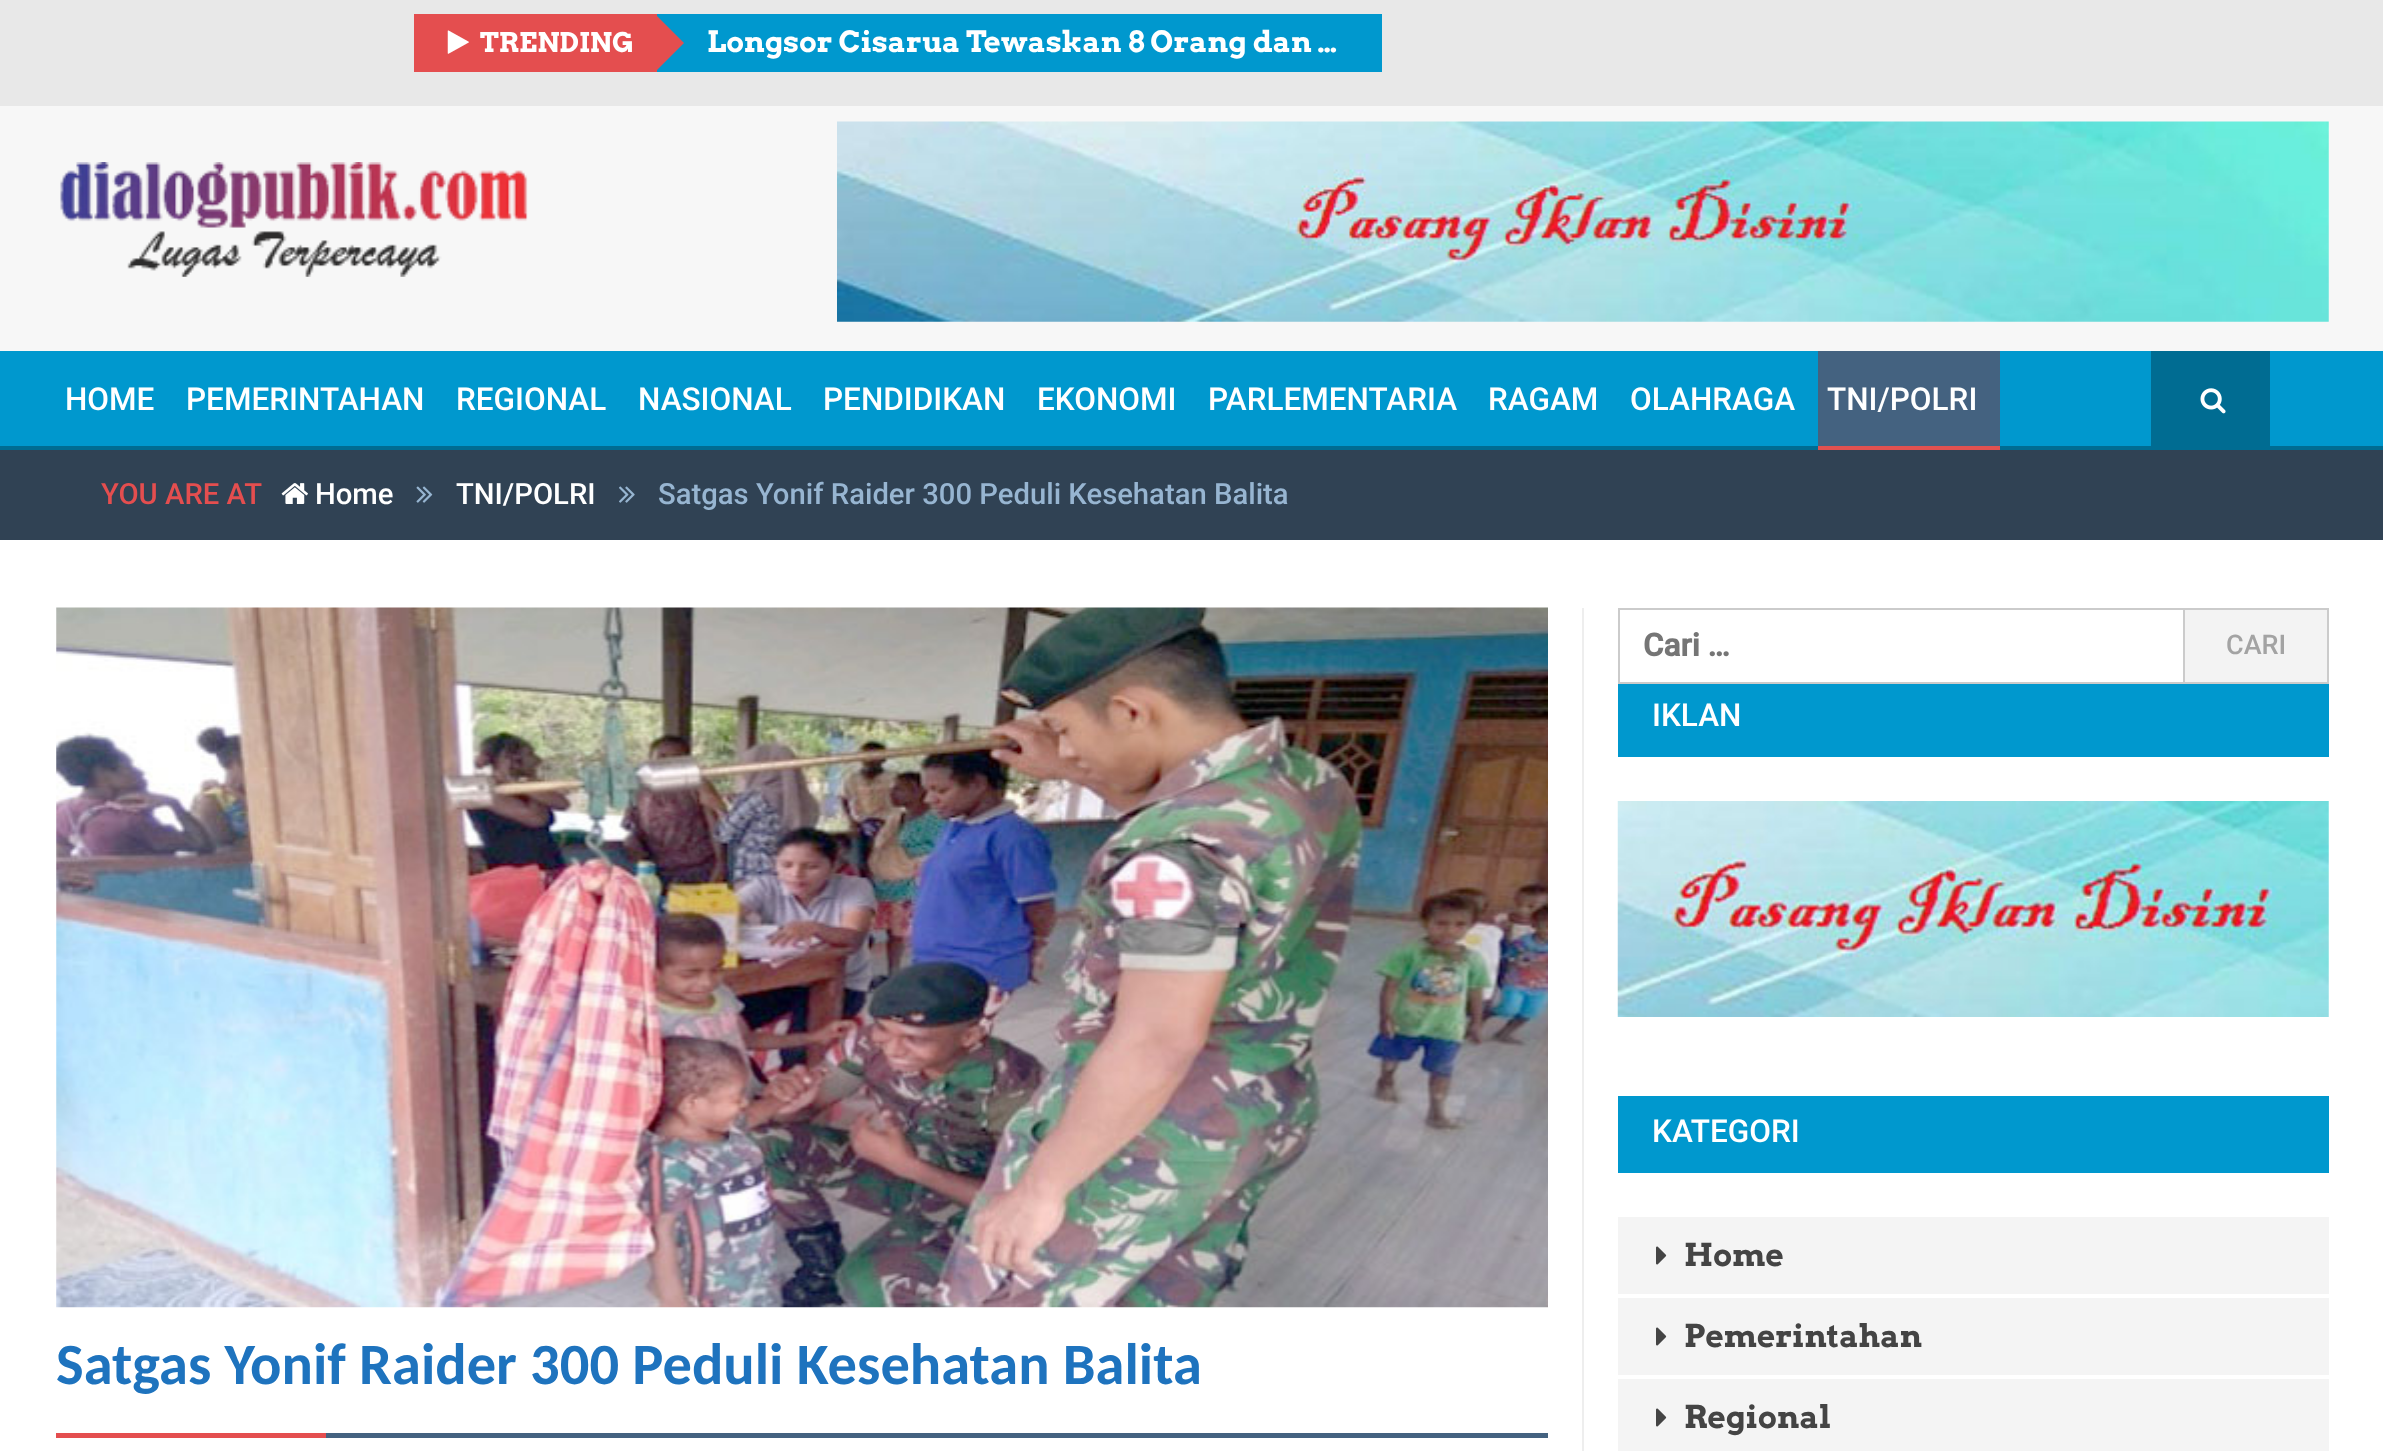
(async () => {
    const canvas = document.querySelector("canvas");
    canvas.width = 2383;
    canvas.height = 1451;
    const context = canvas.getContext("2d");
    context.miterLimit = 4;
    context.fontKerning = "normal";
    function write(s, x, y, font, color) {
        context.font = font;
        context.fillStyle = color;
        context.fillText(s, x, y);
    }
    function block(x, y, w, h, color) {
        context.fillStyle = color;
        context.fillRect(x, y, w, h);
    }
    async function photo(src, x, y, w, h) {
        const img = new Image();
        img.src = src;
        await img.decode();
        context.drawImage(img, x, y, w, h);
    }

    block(0, 0, 2383, 1451, "rgb(255, 255, 255)");
    block(0, 0, 2383, 106, "rgb(232, 232, 232)");
    block(657, 14, 725, 58, "rgb(0, 152, 206)");
    block(414, 14, 243, 58, "rgb(228, 78, 79)");
    await photo("media/1.png", 447, 30, 22, 24);
    write("TRENDING", 480, 52, "bold 27px Arvo", "rgb(255, 255, 255)");
    context.fillStyle = "rgb(228, 78, 79)";
    context.beginPath();
    context.moveTo(657, 70);
    context.lineTo(657, 16);
    context.lineTo(684, 43);
    context.closePath();
    context.fill();
    write("Longsor Cisarua Tewaskan 8 Orang dan …", 707, 52, "bold 29.25px Arvo", "rgb(255, 255, 255)");
    block(0, 106, 2383, 245, "rgb(247, 247, 247)");
    await photo("media/2.png", 60, 162, 468, 115);
    await photo("media/3.png", 837, 121, 1492, 201);
    block(0, 351, 2383, 95, "rgb(0, 152, 206)");
    block(0, 446, 2383, 4, "rgb(0, 108, 146)");
    write("HOME", 65, 410, "500 31.5px Roboto", "rgb(255, 255, 255)");
    write("PEMERINTAHAN", 186, 410, "500 31.5px Roboto", "rgb(255, 255, 255)");
    write("REGIONAL", 456, 410, "500 31.5px Roboto", "rgb(255, 255, 255)");
    write("NASIONAL", 638, 410, "500 31.5px Roboto", "rgb(255, 255, 255)");
    write("PENDIDIKAN", 823, 410, "500 31.5px Roboto", "rgb(255, 255, 255)");
    write("EKONOMI", 1037, 410, "500 31.5px Roboto", "rgb(255, 255, 255)");
    write("PARLEMENTARIA", 1208, 410, "500 31.5px Roboto", "rgb(255, 255, 255)");
    write("RAGAM", 1488, 410, "500 31.5px Roboto", "rgb(255, 255, 255)");
    write("OLAHRAGA", 1630, 410, "500 31.5px Roboto", "rgb(255, 255, 255)");
    block(1818, 351, 182, 95, "rgb(68, 98, 128)");
    block(1818, 446, 182, 4, "rgb(225, 81, 80)");
    write("TNI/POLRI", 1827, 410, "500 31.5px Roboto", "rgb(255, 255, 255)");
    block(2151, 351, 119, 95, "rgb(0, 108, 146)");
    await photo("media/4.png", 2200, 388, 26, 26);
    block(0, 450, 2383, 90, "rgb(48, 66, 84)");
    write("YOU ARE AT", 101, 504, "500 29.25px Roboto", "rgb(228, 78, 79)");
    await photo("media/5.png", 281, 483, 27, 21);
    write("Home", 315, 504, "500 29.25px Roboto", "rgb(255, 255, 255)");
    await photo("media/6.png", 416, 486, 17, 17);
    write("TNI/POLRI", 456, 504, "500 29.25px Roboto", "rgb(255, 255, 255)");
    await photo("media/7.png", 619, 486, 16, 17);
    write("Satgas Yonif Raider 300 Peduli Kesehatan Balita", 658, 504, "500 29.25px Roboto", "rgb(151, 181, 209)");
    await photo("media/8.png", 56, 607, 1492, 701);
    block(326, 1433, 1222, 5, "rgb(68, 98, 128)");
    write("Satgas Yonif Raider 300 Peduli Kesehatan Balita", 56, 1384, "bold 58.5px Carlito", "rgb(30, 115, 190)");
    block(56, 1433, 270, 5, "rgb(228, 78, 79)");
    block(1582, 608, 2, 843, "rgb(238, 238, 238)");
    context.strokeStyle = "rgb(203, 203, 203)";
    context.lineWidth = 2;
    context.strokeRect(1619, 609, 709, 74);
    write("Cari …", 1643, 656, "bold 31.5px Roboto", "rgb(117, 117, 117)");
    context.fillStyle = "rgb(243, 243, 243)";
    context.beginPath();
    context.rect(2184, 609, 144, 74);
    context.fill();
    context.stroke();
    write("CARI", 2226, 654, "500 27px Roboto", "rgb(163, 163, 163)");
    block(1618, 684, 711, 73, "rgb(0, 152, 206)");
    write("IKLAN", 1652, 726, "500 31.5px Roboto", "rgb(255, 255, 255)");
    await photo("media/9.png", 1617, 801, 712, 216);
    block(1618, 1096, 711, 77, "rgb(0, 152, 206)");
    write("KATEGORI", 1652, 1142, "500 31.5px Roboto", "rgb(255, 255, 255)");
    block(1618, 1217, 711, 77, "rgb(244, 244, 244)");
    await photo("media/10.png", 1656, 1246, 11, 19);
    write("Home", 1684, 1266, "bold 31.5px Arvo", "rgb(68, 68, 68)");
    block(1618, 1298, 711, 77, "rgb(244, 244, 244)");
    await photo("media/10.png", 1656, 1327, 11, 19);
    write("Pemerintahan", 1684, 1347, "bold 31.5px Arvo", "rgb(68, 68, 68)");
    block(1618, 1379, 711, 72, "rgb(244, 244, 244)");
    await photo("media/10.png", 1656, 1408, 11, 19);
    write("Regional", 1684, 1428, "bold 31.5px Arvo", "rgb(68, 68, 68)");
})();
